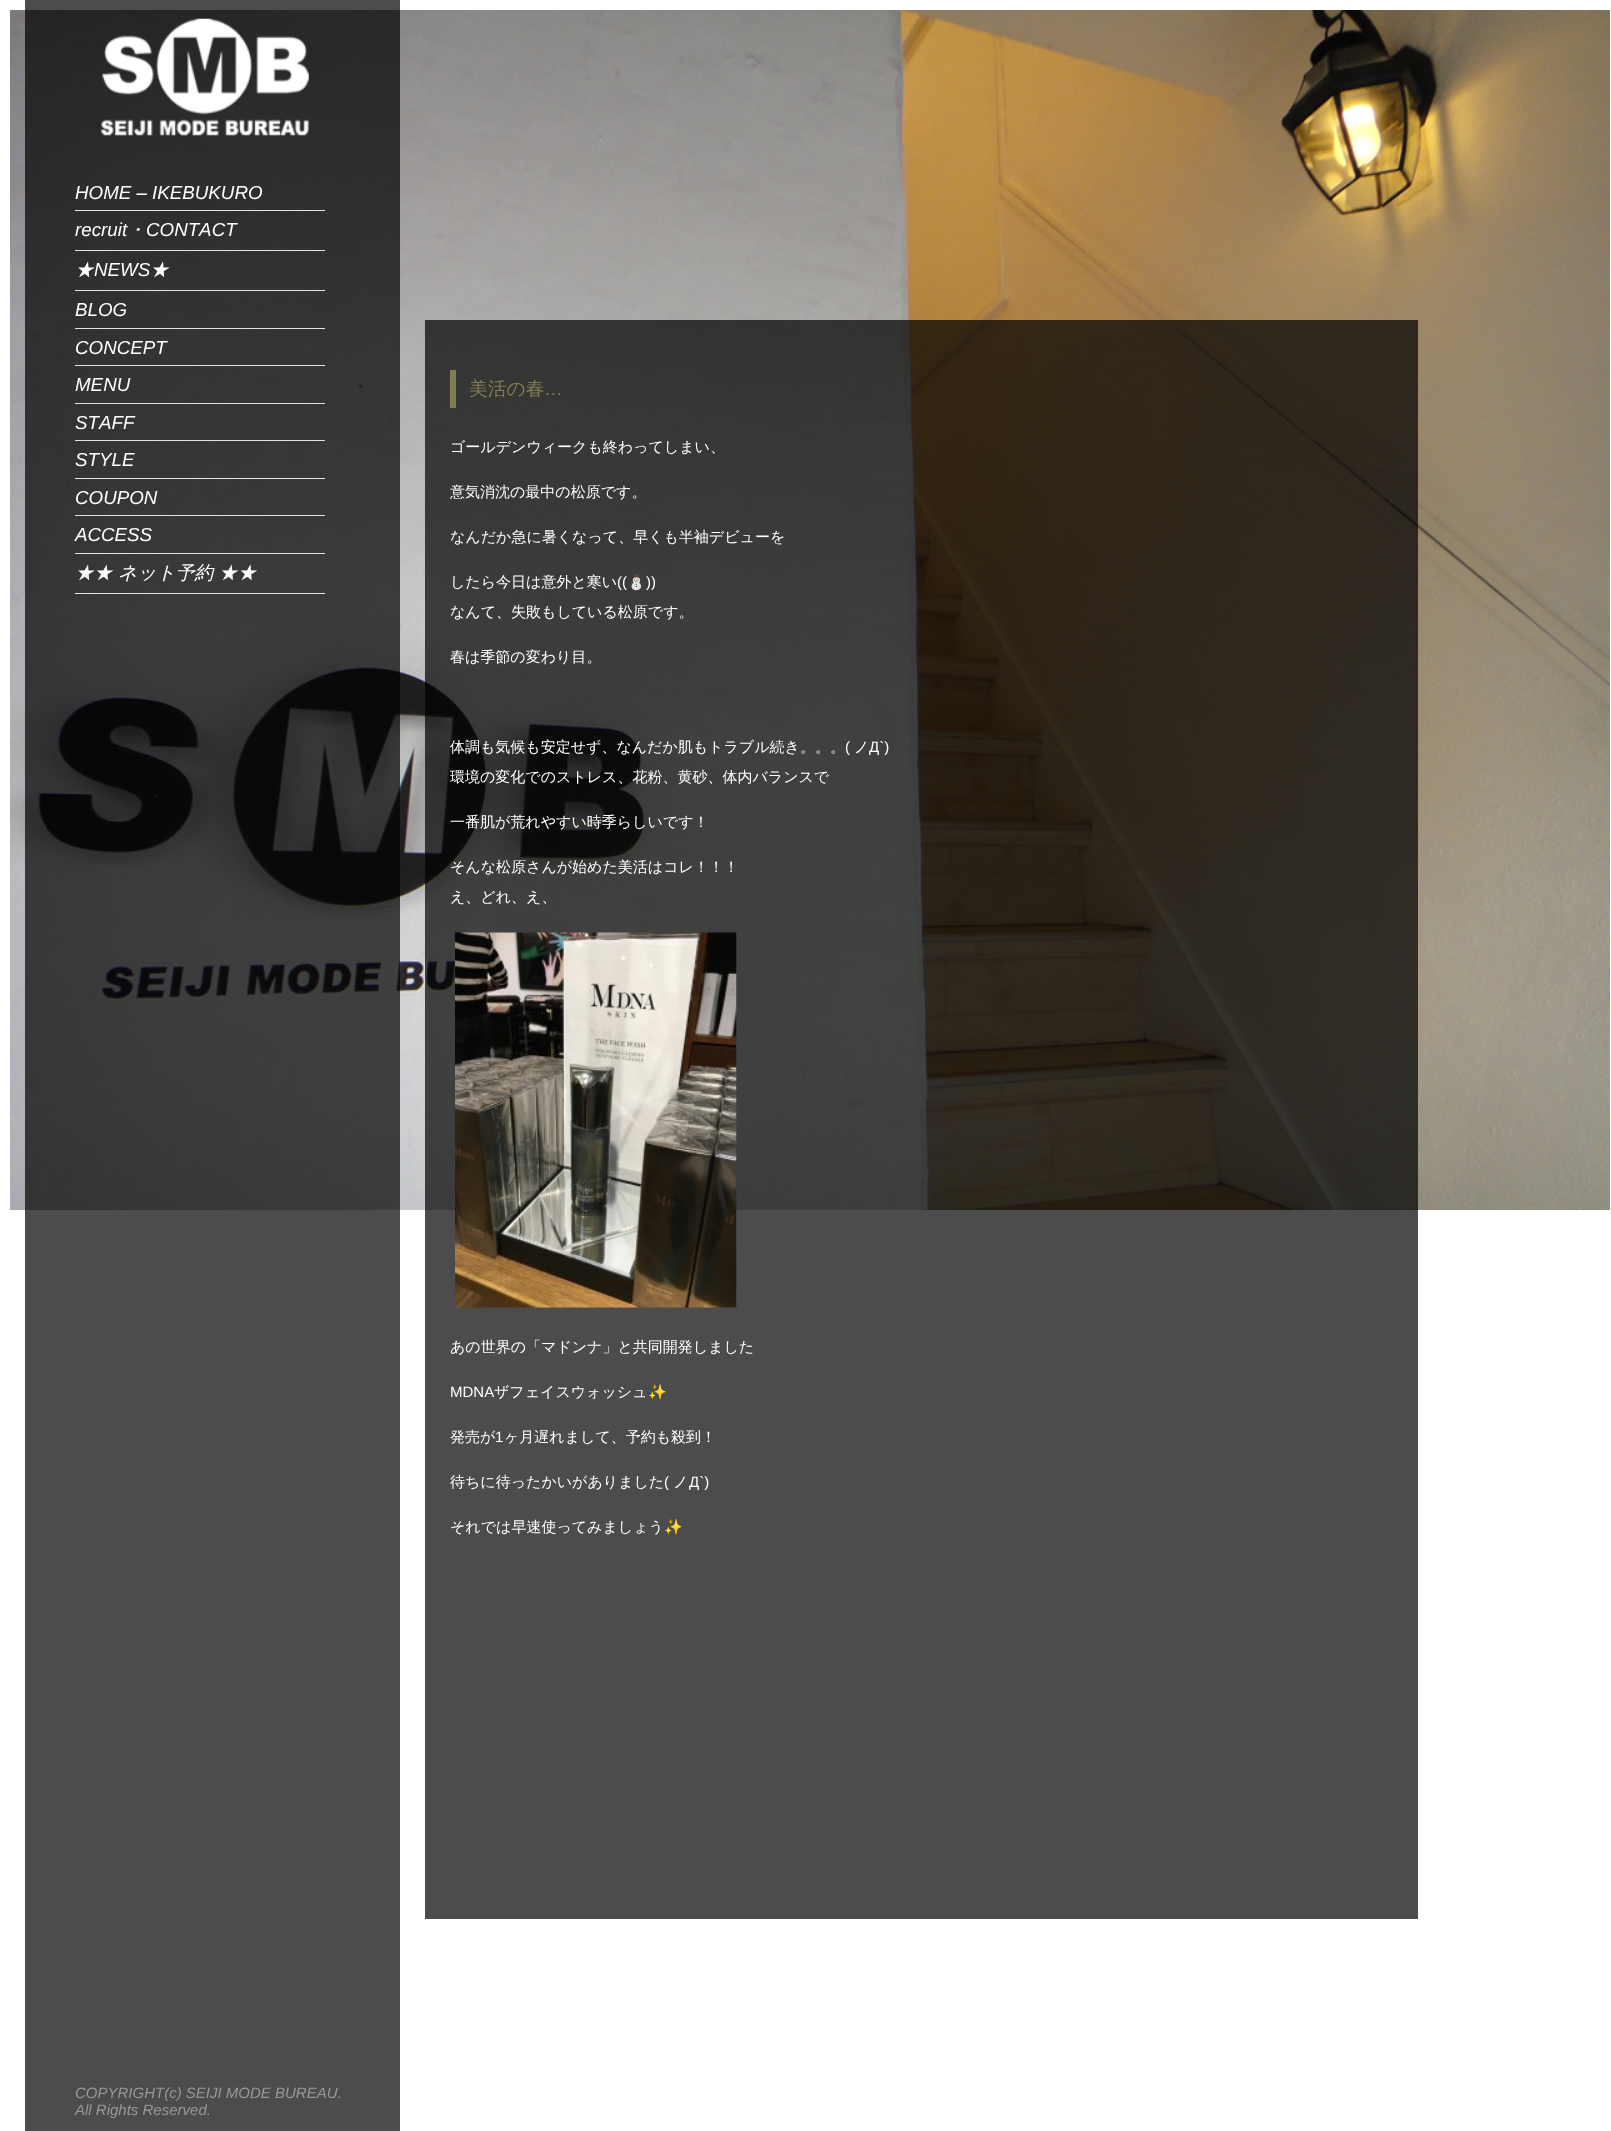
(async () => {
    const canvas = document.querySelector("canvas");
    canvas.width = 1611;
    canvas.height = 2131;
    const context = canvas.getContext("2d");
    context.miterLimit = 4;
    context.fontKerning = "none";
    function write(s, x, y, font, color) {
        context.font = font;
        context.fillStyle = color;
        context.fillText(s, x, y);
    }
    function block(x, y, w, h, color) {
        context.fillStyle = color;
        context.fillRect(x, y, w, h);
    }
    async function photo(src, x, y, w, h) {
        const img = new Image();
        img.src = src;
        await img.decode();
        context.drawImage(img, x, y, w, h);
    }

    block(0, 0, 1611, 2131, "rgb(255, 255, 255)");
    await photo("media/1.png", 10, 10, 1600, 1200);
    block(25, 0, 375, 2131, "rgba(0, 0, 0, 0.7)");
    await photo("media/2.png", 100, 18, 209, 118);
    block(75, 210, 250, 1, "rgb(227, 227, 227)");
    write("HOME – IKEBUKURO", 75, 199, "italic 18.75px Liberation Sans", "rgb(255, 255, 255)");
    block(75, 250, 250, 1, "rgb(227, 227, 227)");
    write("recruit", 75, 236, "italic 18.75px Liberation Sans", "rgb(255, 255, 255)");
    write("・", 127, 236, "italic 500 18.75px WenQuanYi Zen Hei", "rgb(255, 255, 255)");
    write("CONTACT", 146, 236, "italic 18.75px Liberation Sans", "rgb(255, 255, 255)");
    block(75, 290, 250, 1, "rgb(227, 227, 227)");
    write("★", 75, 276, "italic 500 18.75px WenQuanYi Zen Hei", "rgb(255, 255, 255)");
    write("NEWS", 94, 276, "italic 18.75px Liberation Sans", "rgb(255, 255, 255)");
    write("★", 150, 276, "italic 500 18.75px WenQuanYi Zen Hei", "rgb(255, 255, 255)");
    block(75, 328, 250, 1, "rgb(227, 227, 227)");
    write("BLOG", 75, 316, "italic 18.75px Liberation Sans", "rgb(255, 255, 255)");
    block(75, 365, 250, 1, "rgb(227, 227, 227)");
    write("CONCEPT", 75, 354, "italic 18.75px Liberation Sans", "rgb(255, 255, 255)");
    block(75, 403, 250, 1, "rgb(227, 227, 227)");
    write("MENU", 75, 391, "italic 18.75px Liberation Sans", "rgb(255, 255, 255)");
    block(75, 440, 250, 1, "rgb(227, 227, 227)");
    write("STAFF", 75, 429, "italic 18.75px Liberation Sans", "rgb(255, 255, 255)");
    block(75, 478, 250, 1, "rgb(227, 227, 227)");
    write("STYLE", 75, 466, "italic 18.75px Liberation Sans", "rgb(255, 255, 255)");
    block(75, 515, 250, 1, "rgb(227, 227, 227)");
    write("COUPON", 75, 504, "italic 18.75px Liberation Sans", "rgb(255, 255, 255)");
    block(75, 553, 250, 1, "rgb(227, 227, 227)");
    write("ACCESS", 75, 541, "italic 18.75px Liberation Sans", "rgb(255, 255, 255)");
    block(75, 593, 250, 1, "rgb(227, 227, 227)");
    write("★★ ネット予約 ★★", 75, 579, "italic 500 18.75px WenQuanYi Zen Hei", "rgb(255, 255, 255)");
    write("COPYRIGHT(c) SEIJI MODE BUREAU.", 75, 2098, "italic 15px Liberation Sans", "rgb(153, 153, 153)");
    write("All Rights Reserved.", 75, 2115, "italic 15px Liberation Sans", "rgb(153, 153, 153)");
    block(425, 320, 993, 1599, "rgba(0, 0, 0, 0.7)");
    block(450, 370, 6, 38, "rgb(131, 124, 80)");
    write("美活の春", 469, 395, "500 18.75px WenQuanYi Zen Hei", "rgb(131, 124, 80)");
    write("…", 544, 395, "18.75px Liberation Sans", "rgb(131, 124, 80)");
    write("ゴールデンウィークも終わってしまい、", 450, 452, "500 15px WenQuanYi Zen Hei", "rgb(255, 255, 255)");
    write("意気消沈の最中の松原です。", 450, 497, "500 15px WenQuanYi Zen Hei", "rgb(255, 255, 255)");
    write("なんだか急に暑くなって、早くも半袖デビューを", 450, 542, "500 15px WenQuanYi Zen Hei", "rgb(255, 255, 255)");
    write("したら今日は意外と寒い", 450, 587, "500 15px WenQuanYi Zen Hei", "rgb(255, 255, 255)");
    write("((", 617, 587, "15px Liberation Sans", "rgb(255, 255, 255)");
    write("⛄", 627, 587, "15px Noto Color Emoji", "rgb(255, 255, 255)");
    write("))", 646, 587, "15px Liberation Sans", "rgb(255, 255, 255)");
    write("なんて、失敗もしている松原です。", 450, 617, "500 15px WenQuanYi Zen Hei", "rgb(255, 255, 255)");
    write("春は季節の変わり目。", 450, 662, "500 15px WenQuanYi Zen Hei", "rgb(255, 255, 255)");
    write("体調も気候も安定せず、なんだか肌もトラブル続き。。。", 450, 752, "500 15px WenQuanYi Zen Hei", "rgb(255, 255, 255)");
    write("(", 845, 752, "15px Liberation Sans", "rgb(255, 255, 255)");
    write("ノ", 854, 752, "500 15px WenQuanYi Zen Hei", "rgb(255, 255, 255)");
    write("Д`)", 869, 752, "15px Liberation Sans", "rgb(255, 255, 255)");
    write("環境の変化でのストレス、花粉、黄砂、体内バランスで", 450, 782, "500 15px WenQuanYi Zen Hei", "rgb(255, 255, 255)");
    write("一番肌が荒れやすい時季らしいです！", 450, 827, "500 15px WenQuanYi Zen Hei", "rgb(255, 255, 255)");
    write("そんな松原さんが始めた美活はコレ！！！", 450, 872, "500 15px WenQuanYi Zen Hei", "rgb(255, 255, 255)");
    write("え、どれ、え、", 450, 902, "500 15px WenQuanYi Zen Hei", "rgb(255, 255, 255)");
    await photo("media/3.png", 455, 932, 282, 376);
    write("あの世界の「マドンナ」と共同開発しました", 450, 1352, "500 15px WenQuanYi Zen Hei", "rgb(255, 255, 255)");
    write("MDNA", 450, 1397, "15px Liberation Sans", "rgb(255, 255, 255)");
    write("ザフェイスウォッシュ", 494, 1397, "500 15px WenQuanYi Zen Hei", "rgb(255, 255, 255)");
    write("✨", 648, 1397, "15px Noto Color Emoji", "rgb(255, 255, 255)");
    write("発売が", 450, 1442, "500 15px WenQuanYi Zen Hei", "rgb(255, 255, 255)");
    write("1", 495, 1442, "15px Liberation Sans", "rgb(255, 255, 255)");
    write("ヶ月遅れまして、予約も殺到！", 504, 1442, "500 15px WenQuanYi Zen Hei", "rgb(255, 255, 255)");
    write("待ちに待ったかいがありました", 450, 1487, "500 15px WenQuanYi Zen Hei", "rgb(255, 255, 255)");
    write("(", 664, 1487, "15px Liberation Sans", "rgb(255, 255, 255)");
    write("ノ", 673, 1487, "500 15px WenQuanYi Zen Hei", "rgb(255, 255, 255)");
    write("Д`)", 689, 1487, "15px Liberation Sans", "rgb(255, 255, 255)");
    write("それでは早速使ってみましょう", 450, 1532, "500 15px WenQuanYi Zen Hei", "rgb(255, 255, 255)");
    write("✨", 664, 1532, "15px Noto Color Emoji", "rgb(255, 255, 255)");
})();
